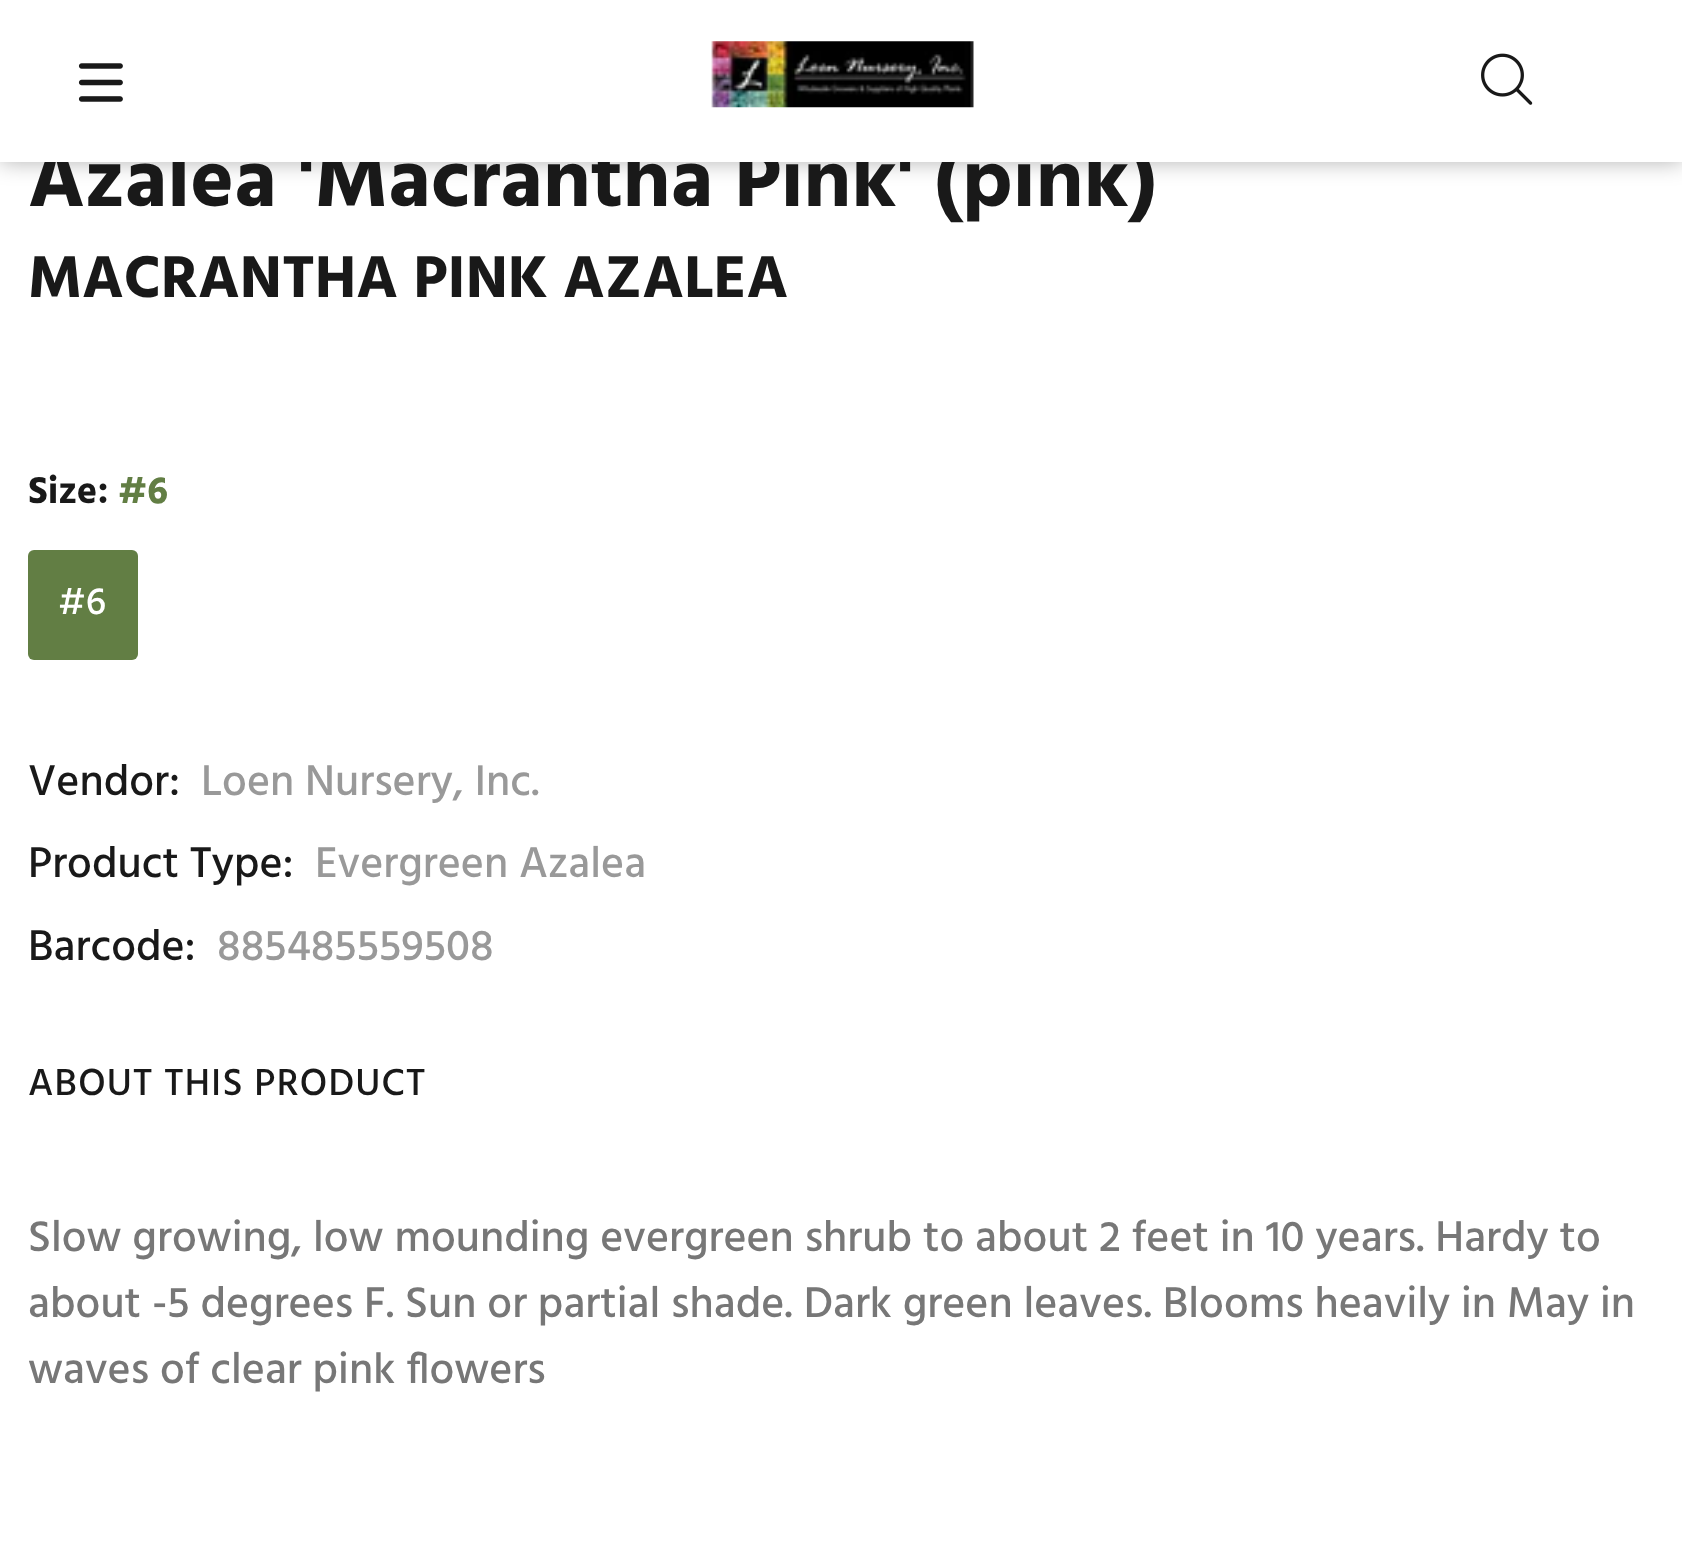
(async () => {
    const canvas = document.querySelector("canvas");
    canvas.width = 1682;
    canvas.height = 1557;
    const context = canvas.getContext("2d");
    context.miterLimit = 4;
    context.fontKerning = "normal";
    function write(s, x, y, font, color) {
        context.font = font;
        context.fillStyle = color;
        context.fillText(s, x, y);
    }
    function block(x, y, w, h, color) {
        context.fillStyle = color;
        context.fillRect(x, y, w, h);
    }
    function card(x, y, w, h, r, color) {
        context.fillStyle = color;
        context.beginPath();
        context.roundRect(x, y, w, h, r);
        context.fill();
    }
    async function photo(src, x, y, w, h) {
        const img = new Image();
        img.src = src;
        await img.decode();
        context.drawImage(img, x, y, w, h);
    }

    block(0, 0, 1682, 1557, "rgb(255, 255, 255)");
    context.fillStyle = "rgba(0, 0, 0, 0.3)";
    context.filter = "blur(11px)";
    context.beginPath();
    context.rect(0, 0, 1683, 162);
    context.fill();
    context.filter = "none";
    context.letterSpacing = "0.1px";
    write("Azalea 'Macrantha Pink' (pink)", 28, 206, "bold 82.5px Hind", "rgb(25, 25, 25)");
    block(0, 0, 1682, 162, "rgb(255, 255, 255)");
    await photo("media/1.png", 78, 63, 45, 39);
    await photo("media/2.png", 711, 41, 263, 67);
    await photo("media/3.png", 1481, 53, 52, 52);
    context.letterSpacing = "0px";
    write("MACRANTHA PINK AZALEA", 28, 297, "bold 60.5px Hind", "rgb(25, 25, 25)");
    write("Size:", 28, 503, "bold 38.5px Hind", "rgb(25, 25, 25)");
    write("#6", 118, 503, "bold 38.5px Hind", "rgb(98, 126, 68)");
    card(28, 550, 110, 110, 6, "rgb(98, 126, 68)");
    write("#6", 58, 614, "500 38.5px Hind", "rgb(255, 255, 255)");
    write("Vendor:", 28, 795, "500 44px Hind", "rgb(25, 25, 25)");
    write("Loen Nursery, Inc.", 201, 795, "500 44px Hind", "rgb(153, 153, 153)");
    write("Product Type:", 28, 877, "500 44px Hind", "rgb(25, 25, 25)");
    write("Evergreen Azalea", 315, 877, "500 44px Hind", "rgb(153, 153, 153)");
    write("Barcode:", 28, 960, "500 44px Hind", "rgb(25, 25, 25)");
    write("885485559508", 217, 960, "500 44px Hind", "rgb(153, 153, 153)");
    context.letterSpacing = "1.2px";
    write("ABOUT THIS PRODUCT", 28, 1095, "500 38.5px Hind", "rgb(25, 25, 25)");
    context.letterSpacing = "0px";
    write("Slow growing, low mounding evergreen shrub to about 2 feet in 10 years. Hardy to", 28, 1251, "500 44px Hind", "rgb(119, 119, 119)");
    write("about -5 degrees F. Sun or partial shade. Dark green leaves. Blooms heavily in May in", 28, 1317, "500 44px Hind", "rgb(119, 119, 119)");
    write("waves of clear pink flowers", 28, 1383, "500 44px Hind", "rgb(119, 119, 119)");
})();
